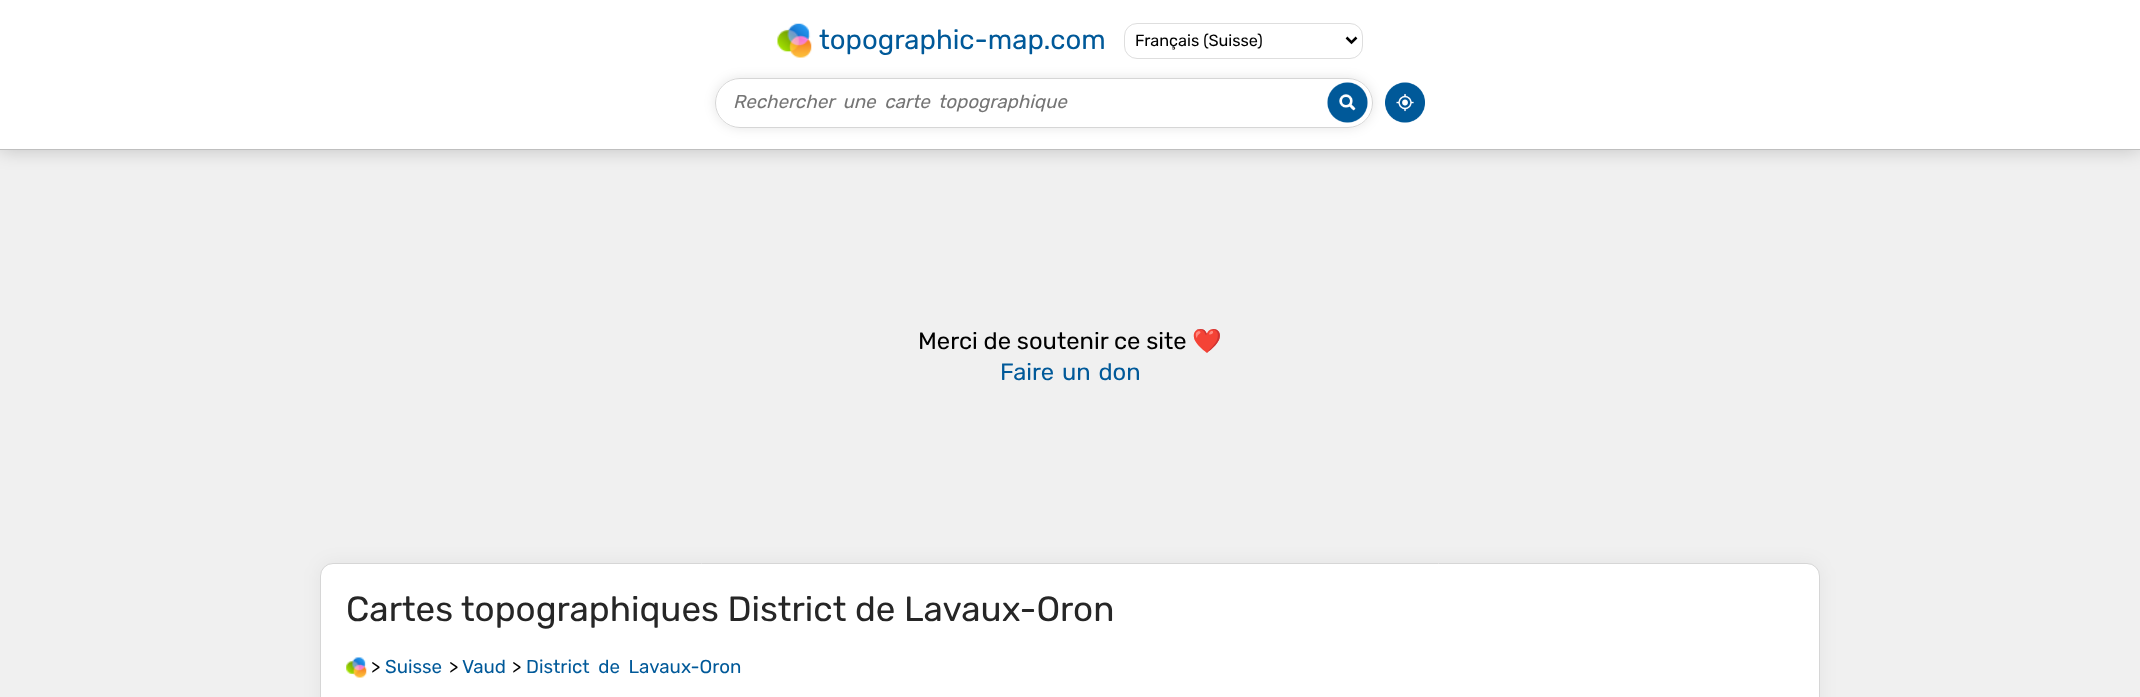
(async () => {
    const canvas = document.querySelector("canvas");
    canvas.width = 2140;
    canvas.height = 697;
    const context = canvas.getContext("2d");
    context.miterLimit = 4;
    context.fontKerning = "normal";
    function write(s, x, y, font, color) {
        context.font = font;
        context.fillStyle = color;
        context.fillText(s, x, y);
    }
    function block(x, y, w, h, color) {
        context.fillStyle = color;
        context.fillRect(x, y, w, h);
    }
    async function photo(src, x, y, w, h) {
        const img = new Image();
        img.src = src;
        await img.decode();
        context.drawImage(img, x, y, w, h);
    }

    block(0, 0, 2140, 697, "rgb(240, 240, 240)");
    context.fillStyle = "rgba(0, 0, 0, 0.2)";
    context.filter = "blur(9.5px)";
    context.beginPath();
    context.rect(0, 0, 2140, 150);
    context.fill();
    context.filter = "none";
    block(0, 0, 2140, 149, "rgb(255, 255, 255)");
    block(0, 149, 2140, 1, "rgb(191, 191, 191)");
    await photo("media/1.png", 777, 23, 35, 35);
    write("topographic-map.com", 819, 49, "27.5px Rubik", "rgb(0, 89, 153)");
    context.beginPath();
    context.roundRect(1124.5, 23.5, 238, 35, 12.5);
    context.strokeStyle = "rgb(222, 222, 222)";
    context.stroke();
    context.beginPath();
    context.moveTo(1346.5, 37.5);
    context.lineTo(1351.5, 42.5);
    context.lineTo(1356.5, 37.5);
    context.strokeStyle = "rgb(0, 0, 0)";
    context.lineWidth = 2.5;
    context.stroke();
    write("Français (Suisse)", 1135, 46, "16.25px Rubik", "rgb(0, 0, 0)");
    context.save();
    context.beginPath();
    context.moveTo(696, 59);
    context.lineTo(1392, 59);
    context.lineTo(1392, 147);
    context.lineTo(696, 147);
    context.closePath();
    context.moveTo(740, 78);
    context.lineTo(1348, 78);
    context.bezierCurveTo(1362, 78, 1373, 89, 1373, 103);
    context.bezierCurveTo(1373, 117, 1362, 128, 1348, 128);
    context.lineTo(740, 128);
    context.bezierCurveTo(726, 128, 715, 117, 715, 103);
    context.bezierCurveTo(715, 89, 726, 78, 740, 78);
    context.closePath();
    context.clip("evenodd");
    context.fillStyle = "rgba(0, 0, 0, 0.1)";
    context.filter = "blur(6px)";
    context.beginPath();
    context.roundRect(715, 78, 658, 50, 25);
    context.fill();
    context.filter = "none";
    context.restore();
    context.beginPath();
    context.roundRect(715.5, 78.5, 657, 49, 24.5);
    context.strokeStyle = "rgb(214, 214, 214)";
    context.lineWidth = 1;
    context.stroke();
    context.wordSpacing = "4px";
    write("Rechercher une carte topographique", 733, 108, "italic 18.75px Rubik", "rgb(117, 117, 117)");
    await photo("media/2.png", 1327, 82, 41, 41);
    await photo("media/3.png", 1385, 82, 40, 41);
    context.wordSpacing = "0px";
    write("Merci de soutenir ce site", 918, 349, "23.75px Rubik", "rgb(0, 0, 0)");
    write("❤️", 1192, 349, "23.75px Noto Color Emoji", "rgb(0, 0, 0)");
    context.wordSpacing = "2px";
    write("Faire un don", 1000, 380, "23.75px Rubik", "rgb(0, 89, 153)");
    context.fillStyle = "rgba(0, 0, 0, 0.05)";
    context.filter = "blur(9.5px)";
    context.beginPath();
    context.roundRect(320, 563, 1500, 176, 13);
    context.fill();
    context.filter = "none";
    context.fillStyle = "rgb(255, 255, 255)";
    context.beginPath();
    context.roundRect(320.5, 563.5, 1499, 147, 12.5);
    context.fill();
    context.stroke();
    context.wordSpacing = "0px";
    write("Cartes topographiques District de Lavaux-Oron", 346, 621, "35px Rubik", "rgb(38, 38, 38)");
    await photo("media/4.png", 346, 657, 21, 21);
    write(">", 371, 673, "18.75px Rubik", "rgb(0, 0, 0)");
    write("Suisse", 385, 673, "18.75px Rubik", "rgb(0, 89, 153)");
    write(">", 449, 673, "18.75px Rubik", "rgb(0, 0, 0)");
    write("Vaud", 462, 673, "18.75px Rubik", "rgb(0, 89, 153)");
    write(">", 512, 673, "18.75px Rubik", "rgb(0, 0, 0)");
    context.wordSpacing = "4px";
    write("District de Lavaux-Oron", 526, 673, "18.75px Rubik", "rgb(0, 89, 153)");
})();
